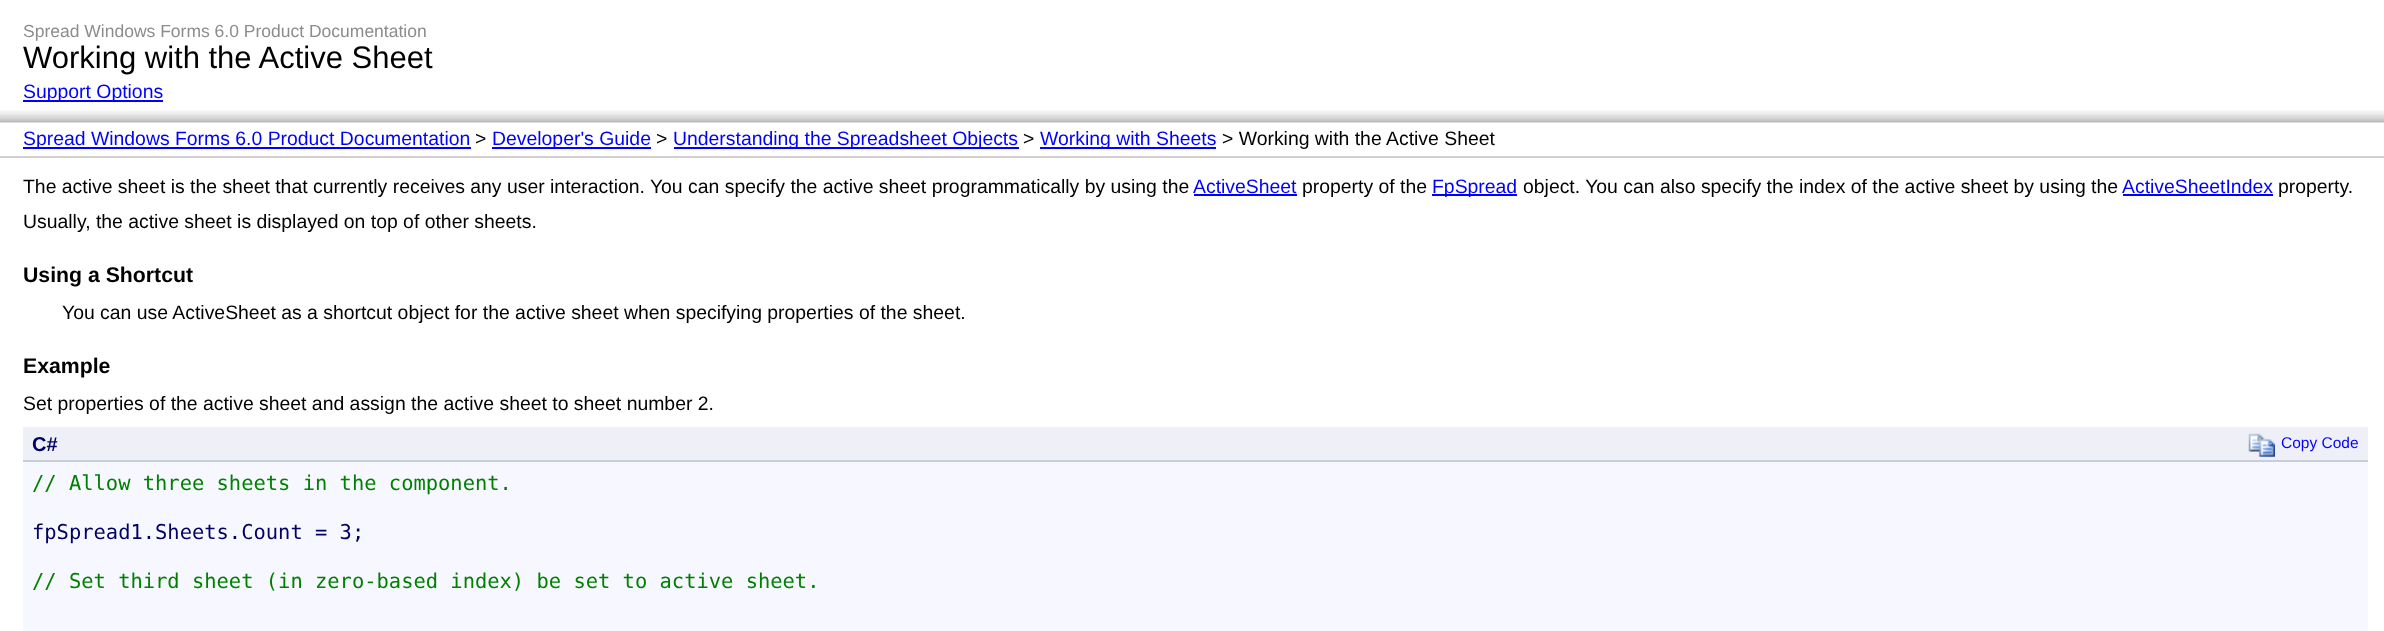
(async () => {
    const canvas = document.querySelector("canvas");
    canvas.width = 2384;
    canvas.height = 631;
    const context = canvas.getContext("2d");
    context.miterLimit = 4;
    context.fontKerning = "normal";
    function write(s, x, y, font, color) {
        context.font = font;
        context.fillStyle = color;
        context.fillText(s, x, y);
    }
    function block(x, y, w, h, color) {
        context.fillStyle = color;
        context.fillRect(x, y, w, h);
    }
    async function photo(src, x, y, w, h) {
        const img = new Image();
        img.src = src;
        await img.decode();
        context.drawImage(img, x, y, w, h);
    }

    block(0, 0, 2384, 631, "rgb(255, 255, 255)");
    write("Spread Windows Forms 6.0 Product Documentation", 23, 37, "17.5px Liberation Sans", "rgb(140, 140, 140)");
    write("Working with the Active Sheet", 23, 68, "31px Liberation Sans", "rgb(0, 0, 0)");
    await photo("media/1.png", 0, 110, 2384, 13);
    block(23, 100, 140, 2, "rgb(0, 0, 255)");
    write("Support Options", 23, 98, "19.4px Liberation Sans", "rgb(0, 0, 255)");
    block(0, 156, 2384, 2, "rgb(208, 208, 208)");
    block(23, 147, 448, 2, "rgb(0, 0, 255)");
    write("Spread Windows Forms 6.0 Product Documentation", 23, 145, "19.4px Liberation Sans", "rgb(0, 0, 255)");
    write(">", 475, 145, "19.4px Liberation Sans", "rgb(0, 0, 0)");
    block(492, 147, 159, 2, "rgb(0, 0, 255)");
    write("Developer's Guide", 492, 145, "19.4px Liberation Sans", "rgb(0, 0, 255)");
    write(">", 656, 145, "19.4px Liberation Sans", "rgb(0, 0, 0)");
    block(674, 147, 345, 2, "rgb(0, 0, 255)");
    write("Understanding the Spreadsheet Objects", 673, 145, "19.4px Liberation Sans", "rgb(0, 0, 255)");
    write(">", 1023, 145, "19.4px Liberation Sans", "rgb(0, 0, 0)");
    block(1040, 147, 176, 2, "rgb(0, 0, 255)");
    write("Working with Sheets", 1040, 145, "19.4px Liberation Sans", "rgb(0, 0, 255)");
    write("> Working with the Active Sheet", 1222, 145, "19.4px Liberation Sans", "rgb(0, 0, 0)");
    write("The active sheet is the sheet that currently receives any user interaction. You can specify the active sheet programmatically by using the", 23, 193, "19.4px Liberation Sans", "rgb(0, 0, 0)");
    write("ActiveSheet", 1193, 193, "19.4px Liberation Sans", "rgb(0, 0, 255)");
    block(1194, 194, 103, 2, "rgb(0, 0, 255)");
    write("property of the", 1302, 193, "19.4px Liberation Sans", "rgb(0, 0, 0)");
    block(1432, 194, 85, 2, "rgb(0, 0, 255)");
    write("FpSpread", 1432, 193, "19.4px Liberation Sans", "rgb(0, 0, 255)");
    write("object. You can also specify the index of the active sheet by using the", 1523, 193, "19.4px Liberation Sans", "rgb(0, 0, 0)");
    write("ActiveSheetIndex", 2122, 193, "19.4px Liberation Sans", "rgb(0, 0, 255)");
    block(2123, 194, 150, 2, "rgb(0, 0, 255)");
    write("property.", 2278, 193, "19.4px Liberation Sans", "rgb(0, 0, 0)");
    write("Usually, the active sheet is displayed on top of other sheets.", 23, 228, "19.4px Liberation Sans", "rgb(0, 0, 0)");
    write("Using a Shortcut", 23, 282, "bold 21.25px Liberation Sans", "rgb(0, 0, 0)");
    write("You can use ActiveSheet as a shortcut object for the active sheet when specifying properties of the sheet.", 62, 319, "19.4px Liberation Sans", "rgb(0, 0, 0)");
    write("Example", 23, 373, "bold 21.25px Liberation Sans", "rgb(0, 0, 0)");
    write("Set properties of the active sheet and assign the active sheet to sheet number 2.", 23, 410, "19.4px Liberation Sans", "rgb(0, 0, 0)");
    block(23, 427, 2345, 33, "rgb(239, 239, 247)");
    block(23, 460, 2345, 2, "rgb(200, 205, 222)");
    write("C#", 32, 451, "bold 20px Liberation Sans", "rgb(0, 0, 102)");
    await photo("media/2.png", 2248, 433, 27, 24);
    write("Copy Code", 2281, 448, "15.5px Liberation Sans", "rgb(0, 0, 255)");
    block(23, 462, 2345, 169, "rgb(247, 247, 255)");
    write("// Allow three sheets in the component.", 32, 490, "20.45px DejaVu Sans Mono", "rgb(0, 128, 0)");
    write("fpSpread1.Sheets.Count = 3;", 32, 539, "20.45px DejaVu Sans Mono", "rgb(0, 0, 102)");
    write("// Set third sheet (in zero-based index) be set to active sheet.", 32, 588, "20.45px DejaVu Sans Mono", "rgb(0, 128, 0)");
})();
